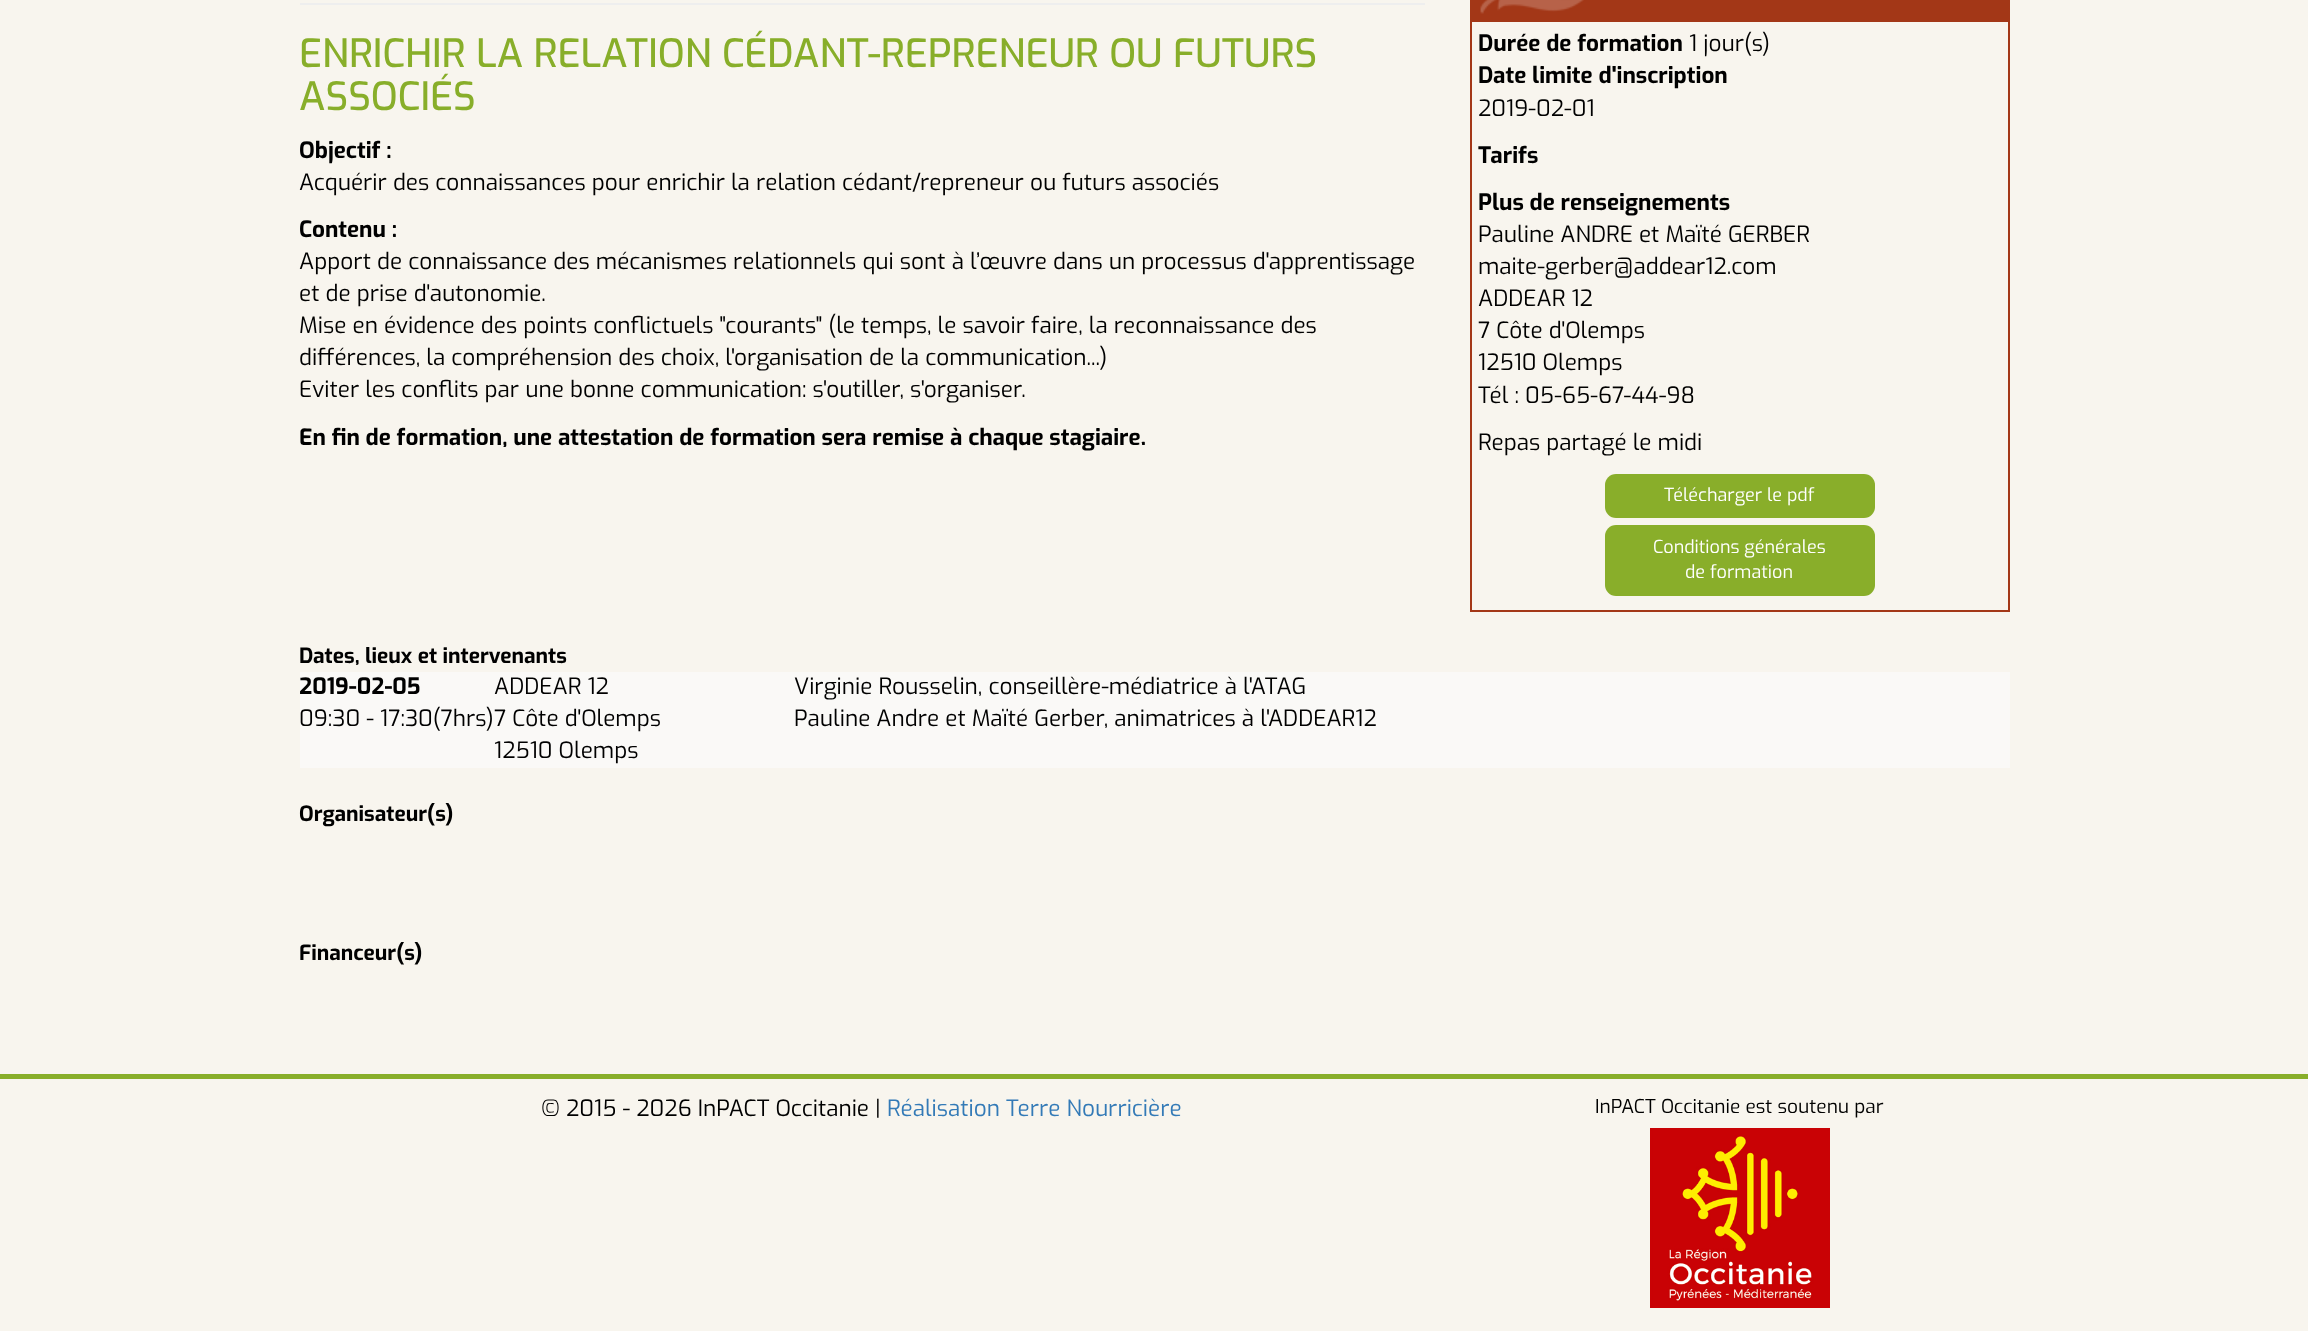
(async () => {
    const canvas = document.querySelector("canvas");
    canvas.width = 2308;
    canvas.height = 1331;
    const context = canvas.getContext("2d");
    context.miterLimit = 4;
    context.fontKerning = "normal";
    function write(s, x, y, font, color) {
        context.font = font;
        context.fillStyle = color;
        context.fillText(s, x, y);
    }
    function block(x, y, w, h, color) {
        context.fillStyle = color;
        context.fillRect(x, y, w, h);
    }
    function card(x, y, w, h, r, color) {
        context.fillStyle = color;
        context.beginPath();
        context.roundRect(x, y, w, h, r);
        context.fill();
    }
    async function photo(src, x, y, w, h) {
        const img = new Image();
        img.src = src;
        await img.decode();
        context.drawImage(img, x, y, w, h);
    }

    block(0, 0, 2308, 1331, "rgb(248, 245, 238)");
    block(300, 3, 1125, 2, "rgb(238, 238, 238)");
    write("ENRICHIR LA RELATION CÉDANT-REPRENEUR OU FUTURS", 299, 67, "500 39px Exo", "rgb(136, 174, 42)");
    write("ASSOCIÉS", 299, 110, "500 39px Exo", "rgb(136, 174, 42)");
    write("Objectif :", 299, 158, "bold 22.5px Exo", "rgb(0, 0, 0)");
    write("Acquérir des connaissances pour enrichir la relation cédant/repreneur ou futurs associés", 299, 190, "22.5px Exo", "rgb(0, 0, 0)");
    write("Contenu :", 299, 237, "bold 22.5px Exo", "rgb(0, 0, 0)");
    write("Apport de connaissance des mécanismes relationnels qui sont à l’œuvre dans un processus d'apprentissage", 299, 269, "22.5px Exo", "rgb(0, 0, 0)");
    write("et de prise d'autonomie.", 299, 301, "22.5px Exo", "rgb(0, 0, 0)");
    write("Mise en évidence des points conflictuels \"courants\" (le temps, le savoir faire, la reconnaissance des", 299, 333, "22.5px Exo", "rgb(0, 0, 0)");
    write("différences, la compréhension des choix, l'organisation de la communication...)", 299, 365, "22.5px Exo", "rgb(0, 0, 0)");
    write("Eviter les conflits par une bonne communication: s'outiller, s'organiser.", 299, 397, "22.5px Exo", "rgb(0, 0, 0)");
    write("En fin de formation, une attestation de formation sera remise à chaque stagiaire.", 299, 445, "bold 22.5px Exo", "rgb(0, 0, 0)");
    block(1470, 0, 540, 20, "rgb(163, 55, 23)");
    await photo("media/1.png", 1480, 0, 104, 14);
    context.strokeStyle = "rgb(163, 55, 23)";
    context.lineWidth = 2;
    context.strokeRect(1471, 21, 538, 590);
    write("Durée de formation", 1478, 51, "bold 22.5px Exo", "rgb(0, 0, 0)");
    write("1 jour(s)", 1689, 51, "22.5px Exo", "rgb(0, 0, 0)");
    write("Date limite d'inscription", 1478, 83, "bold 22.5px Exo", "rgb(0, 0, 0)");
    write("2019-02-01", 1478, 116, "22.5px Exo", "rgb(0, 0, 0)");
    write("Tarifs", 1478, 163, "bold 22.5px Exo", "rgb(0, 0, 0)");
    write("Plus de renseignements", 1478, 210, "bold 22.5px Exo", "rgb(0, 0, 0)");
    write("Pauline ANDRE et Maïté GERBER", 1478, 242, "22.5px Exo", "rgb(0, 0, 0)");
    write("maite-gerber@addear12.com", 1478, 274, "22.5px Exo", "rgb(0, 0, 0)");
    write("ADDEAR 12", 1478, 306, "22.5px Exo", "rgb(0, 0, 0)");
    write("7 Côte d'Olemps", 1478, 338, "22.5px Exo", "rgb(0, 0, 0)");
    write("12510 Olemps", 1478, 370, "22.5px Exo", "rgb(0, 0, 0)");
    write("Tél : 05-65-67-44-98", 1478, 403, "22.5px Exo", "rgb(0, 0, 0)");
    write("Repas partagé le midi", 1478, 450, "22.5px Exo", "rgb(0, 0, 0)");
    card(1605, 474, 270, 44, 11, "rgb(137, 174, 42)");
    write("Télécharger le pdf", 1664, 501, "18px Exo", "rgb(255, 255, 255)");
    card(1605, 525, 270, 71, 11, "rgb(137, 174, 42)");
    write("Conditions générales", 1653, 553, "18px Exo", "rgb(255, 255, 255)");
    write("de formation", 1685, 578, "18px Exo", "rgb(255, 255, 255)");
    write("Dates, lieux et intervenants", 299, 663, "bold 21px Exo", "rgb(0, 0, 0)");
    block(300, 672, 1710, 96, "rgb(250, 249, 247)");
    write("2019-02-05", 299, 694, "bold 22.5px Exo", "rgb(0, 0, 0)");
    write("09:30 - 17:30(7hrs)", 299, 726, "22.5px Exo", "rgb(0, 0, 0)");
    write("ADDEAR 12", 494, 694, "22.5px Exo", "rgb(0, 0, 0)");
    write("7 Côte d'Olemps", 494, 726, "22.5px Exo", "rgb(0, 0, 0)");
    write("12510 Olemps", 494, 758, "22.5px Exo", "rgb(0, 0, 0)");
    write("Virginie Rousselin, conseillère-médiatrice à l'ATAG", 794, 694, "22.5px Exo", "rgb(0, 0, 0)");
    write("Pauline Andre et Maïté Gerber, animatrices à l'ADDEAR12", 794, 726, "22.5px Exo", "rgb(0, 0, 0)");
    write("Organisateur(s)", 299, 821, "bold 21px Exo", "rgb(0, 0, 0)");
    write("Financeur(s)", 299, 960, "bold 21px Exo", "rgb(0, 0, 0)");
    block(0, 1074, 2308, 5, "rgb(136, 174, 42)");
    write("© 2015 - 2026 InPACT Occitanie |", 541, 1116, "22.5px Exo", "rgb(0, 0, 0)");
    write("Réalisation Terre Nourricière", 887, 1116, "22.5px Exo", "rgb(51, 122, 183)");
    write("InPACT Occitanie est soutenu par", 1595, 1113, "19.1px Exo", "rgb(0, 0, 0)");
    await photo("media/2.png", 1650, 1128, 180, 180);
})();
